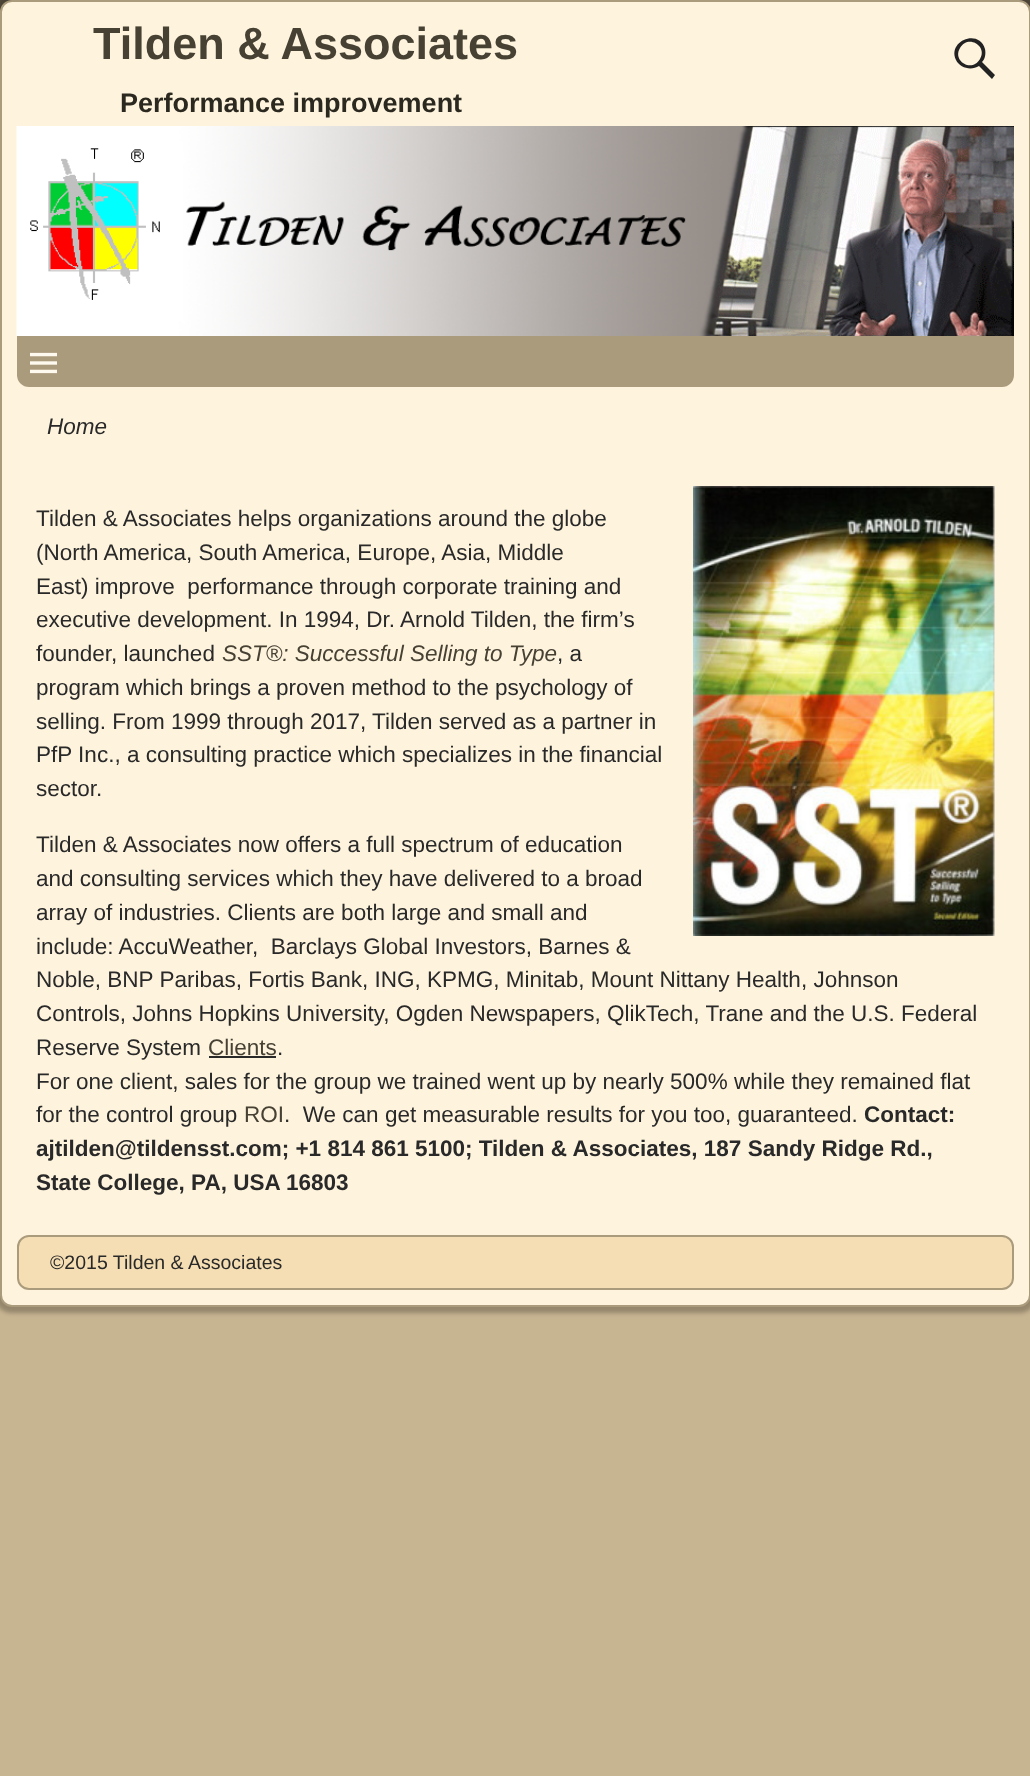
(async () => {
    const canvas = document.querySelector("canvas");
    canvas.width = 1030;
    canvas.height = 1776;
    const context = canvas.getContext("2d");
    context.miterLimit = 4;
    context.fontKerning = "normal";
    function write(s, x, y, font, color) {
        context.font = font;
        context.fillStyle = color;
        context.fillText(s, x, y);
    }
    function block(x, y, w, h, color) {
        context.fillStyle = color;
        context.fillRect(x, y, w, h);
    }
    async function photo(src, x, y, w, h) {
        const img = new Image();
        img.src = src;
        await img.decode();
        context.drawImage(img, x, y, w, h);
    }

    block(0, 0, 1030, 1776, "rgb(199, 180, 145)");
    await photo("media/1.png", 0, 0, 1030, 12);
    context.fillStyle = "rgba(0, 0, 0, 0.25)";
    context.filter = "blur(2px)";
    context.beginPath();
    context.roundRect(-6, -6, 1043, 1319, 18);
    context.fill();
    context.filter = "none";
    context.fillStyle = "rgb(254, 243, 221)";
    context.beginPath();
    context.roundRect(1, 1, 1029, 1305, 11);
    context.fill();
    context.strokeStyle = "rgb(171, 155, 125)";
    context.lineWidth = 2;
    context.stroke();
    write("Tilden & Associates", 93, 59, "bold 45px Liberation Sans", "rgb(71, 65, 52)");
    context.fillStyle = "rgb(34, 34, 34)";
    context.beginPath();
    context.moveTo(995, 75);
    context.lineTo(992, 79);
    context.lineTo(979, 66);
    context.bezierCurveTo(971, 71, 960, 68, 956, 60);
    context.bezierCurveTo(947, 41, 979, 28, 985, 49);
    context.bezierCurveTo(986, 54, 985, 59, 982, 62);
    context.closePath();
    context.moveTo(960, 48);
    context.bezierCurveTo(952, 61, 972, 73, 980, 59);
    context.bezierCurveTo(988, 46, 968, 34, 960, 48);
    context.closePath();
    context.fill();
    write("Performance improvement", 120, 112, "bold 27px Liberation Sans", "rgb(43, 40, 32)");
    await photo("media/2.png", 16, 126, 998, 210);
    context.fillStyle = "rgb(171, 155, 125)";
    context.beginPath();
    context.roundRect(17, 336, 997, 51, [0, 0, 12, 12]);
    context.fill();
    await photo("media/3.png", 30, 352, 27, 22);
    write("Home", 47, 434, "italic 22.5px Liberation Sans", "rgb(41, 41, 41)");
    write("Tilden & Associates helps organizations around the globe", 36, 526, "22.5px Liberation Sans", "rgb(41, 41, 41)");
    write("(North America, South America, Europe, Asia, Middle", 36, 560, "22.5px Liberation Sans", "rgb(41, 41, 41)");
    write("East) improve  performance through corporate training and", 36, 594, "22.5px Liberation Sans", "rgb(41, 41, 41)");
    write("executive development. In 1994, Dr. Arnold Tilden, the firm’s", 36, 627, "22.5px Liberation Sans", "rgb(41, 41, 41)");
    write("founder, launched", 36, 661, "22.5px Liberation Sans", "rgb(41, 41, 41)");
    write("SST®: Successful Selling to Type", 222, 661, "italic 22.5px Liberation Sans", "rgb(71, 65, 52)");
    write(", a", 557, 661, "22.5px Liberation Sans", "rgb(41, 41, 41)");
    write("program which brings a proven method to the psychology of", 36, 695, "22.5px Liberation Sans", "rgb(41, 41, 41)");
    write("selling. From 1999 through 2017, Tilden served as a partner in", 36, 729, "22.5px Liberation Sans", "rgb(41, 41, 41)");
    write("PfP Inc., a consulting practice which specializes in the financial", 36, 762, "22.5px Liberation Sans", "rgb(41, 41, 41)");
    write("sector.", 36, 796, "22.5px Liberation Sans", "rgb(41, 41, 41)");
    await photo("media/4.png", 693, 486, 302, 450);
    write("Tilden & Associates now offers a full spectrum of education", 36, 852, "22.5px Liberation Sans", "rgb(41, 41, 41)");
    write("and consulting services which they have delivered to a broad", 36, 886, "22.5px Liberation Sans", "rgb(41, 41, 41)");
    write("array of industries. Clients are both large and small and", 36, 920, "22.5px Liberation Sans", "rgb(41, 41, 41)");
    write("include: AccuWeather,  Barclays Global Investors, Barnes &", 36, 954, "22.5px Liberation Sans", "rgb(41, 41, 41)");
    write("Noble, BNP Paribas, Fortis Bank, ING, KPMG, Minitab, Mount Nittany Health, Johnson", 36, 987, "22.5px Liberation Sans", "rgb(41, 41, 41)");
    write("Controls, Johns Hopkins University, Ogden Newspapers, QlikTech, Trane and the U.S. Federal", 36, 1021, "22.5px Liberation Sans", "rgb(41, 41, 41)");
    write("Reserve System", 36, 1055, "22.5px Liberation Sans", "rgb(41, 41, 41)");
    write("Clients", 208, 1055, "22.5px Liberation Sans", "rgb(71, 65, 52)");
    block(209, 1056, 67, 2, "rgb(41, 41, 41)");
    write(".", 277, 1055, "22.5px Liberation Sans", "rgb(41, 41, 41)");
    write("For one client, sales for the group we trained went up by nearly 500% while they remained flat", 36, 1089, "22.5px Liberation Sans", "rgb(41, 41, 41)");
    write("for the control group", 36, 1122, "22.5px Liberation Sans", "rgb(41, 41, 41)");
    write("ROI", 244, 1122, "22.5px Liberation Sans", "rgb(71, 65, 52)");
    write(".  We can get measurable results for you too, guaranteed.", 284, 1122, "22.5px Liberation Sans", "rgb(41, 41, 41)");
    write("Contact:", 864, 1122, "bold 22.5px Liberation Sans", "rgb(41, 41, 41)");
    write("ajtilden@tildensst.com; +1 814 861 5100; Tilden & Associates, 187 Sandy Ridge Rd.,", 36, 1156, "bold 22.5px Liberation Sans", "rgb(41, 41, 41)");
    write("State College, PA, USA 16803", 36, 1190, "bold 22.5px Liberation Sans", "rgb(41, 41, 41)");
    context.fillStyle = "rgb(245, 222, 179)";
    context.beginPath();
    context.roundRect(18, 1236, 995, 53, 11);
    context.fill();
    context.stroke();
    write("©2015 Tilden & Associates", 50, 1269, "19.5px Liberation Sans", "rgb(41, 41, 41)");
})();
